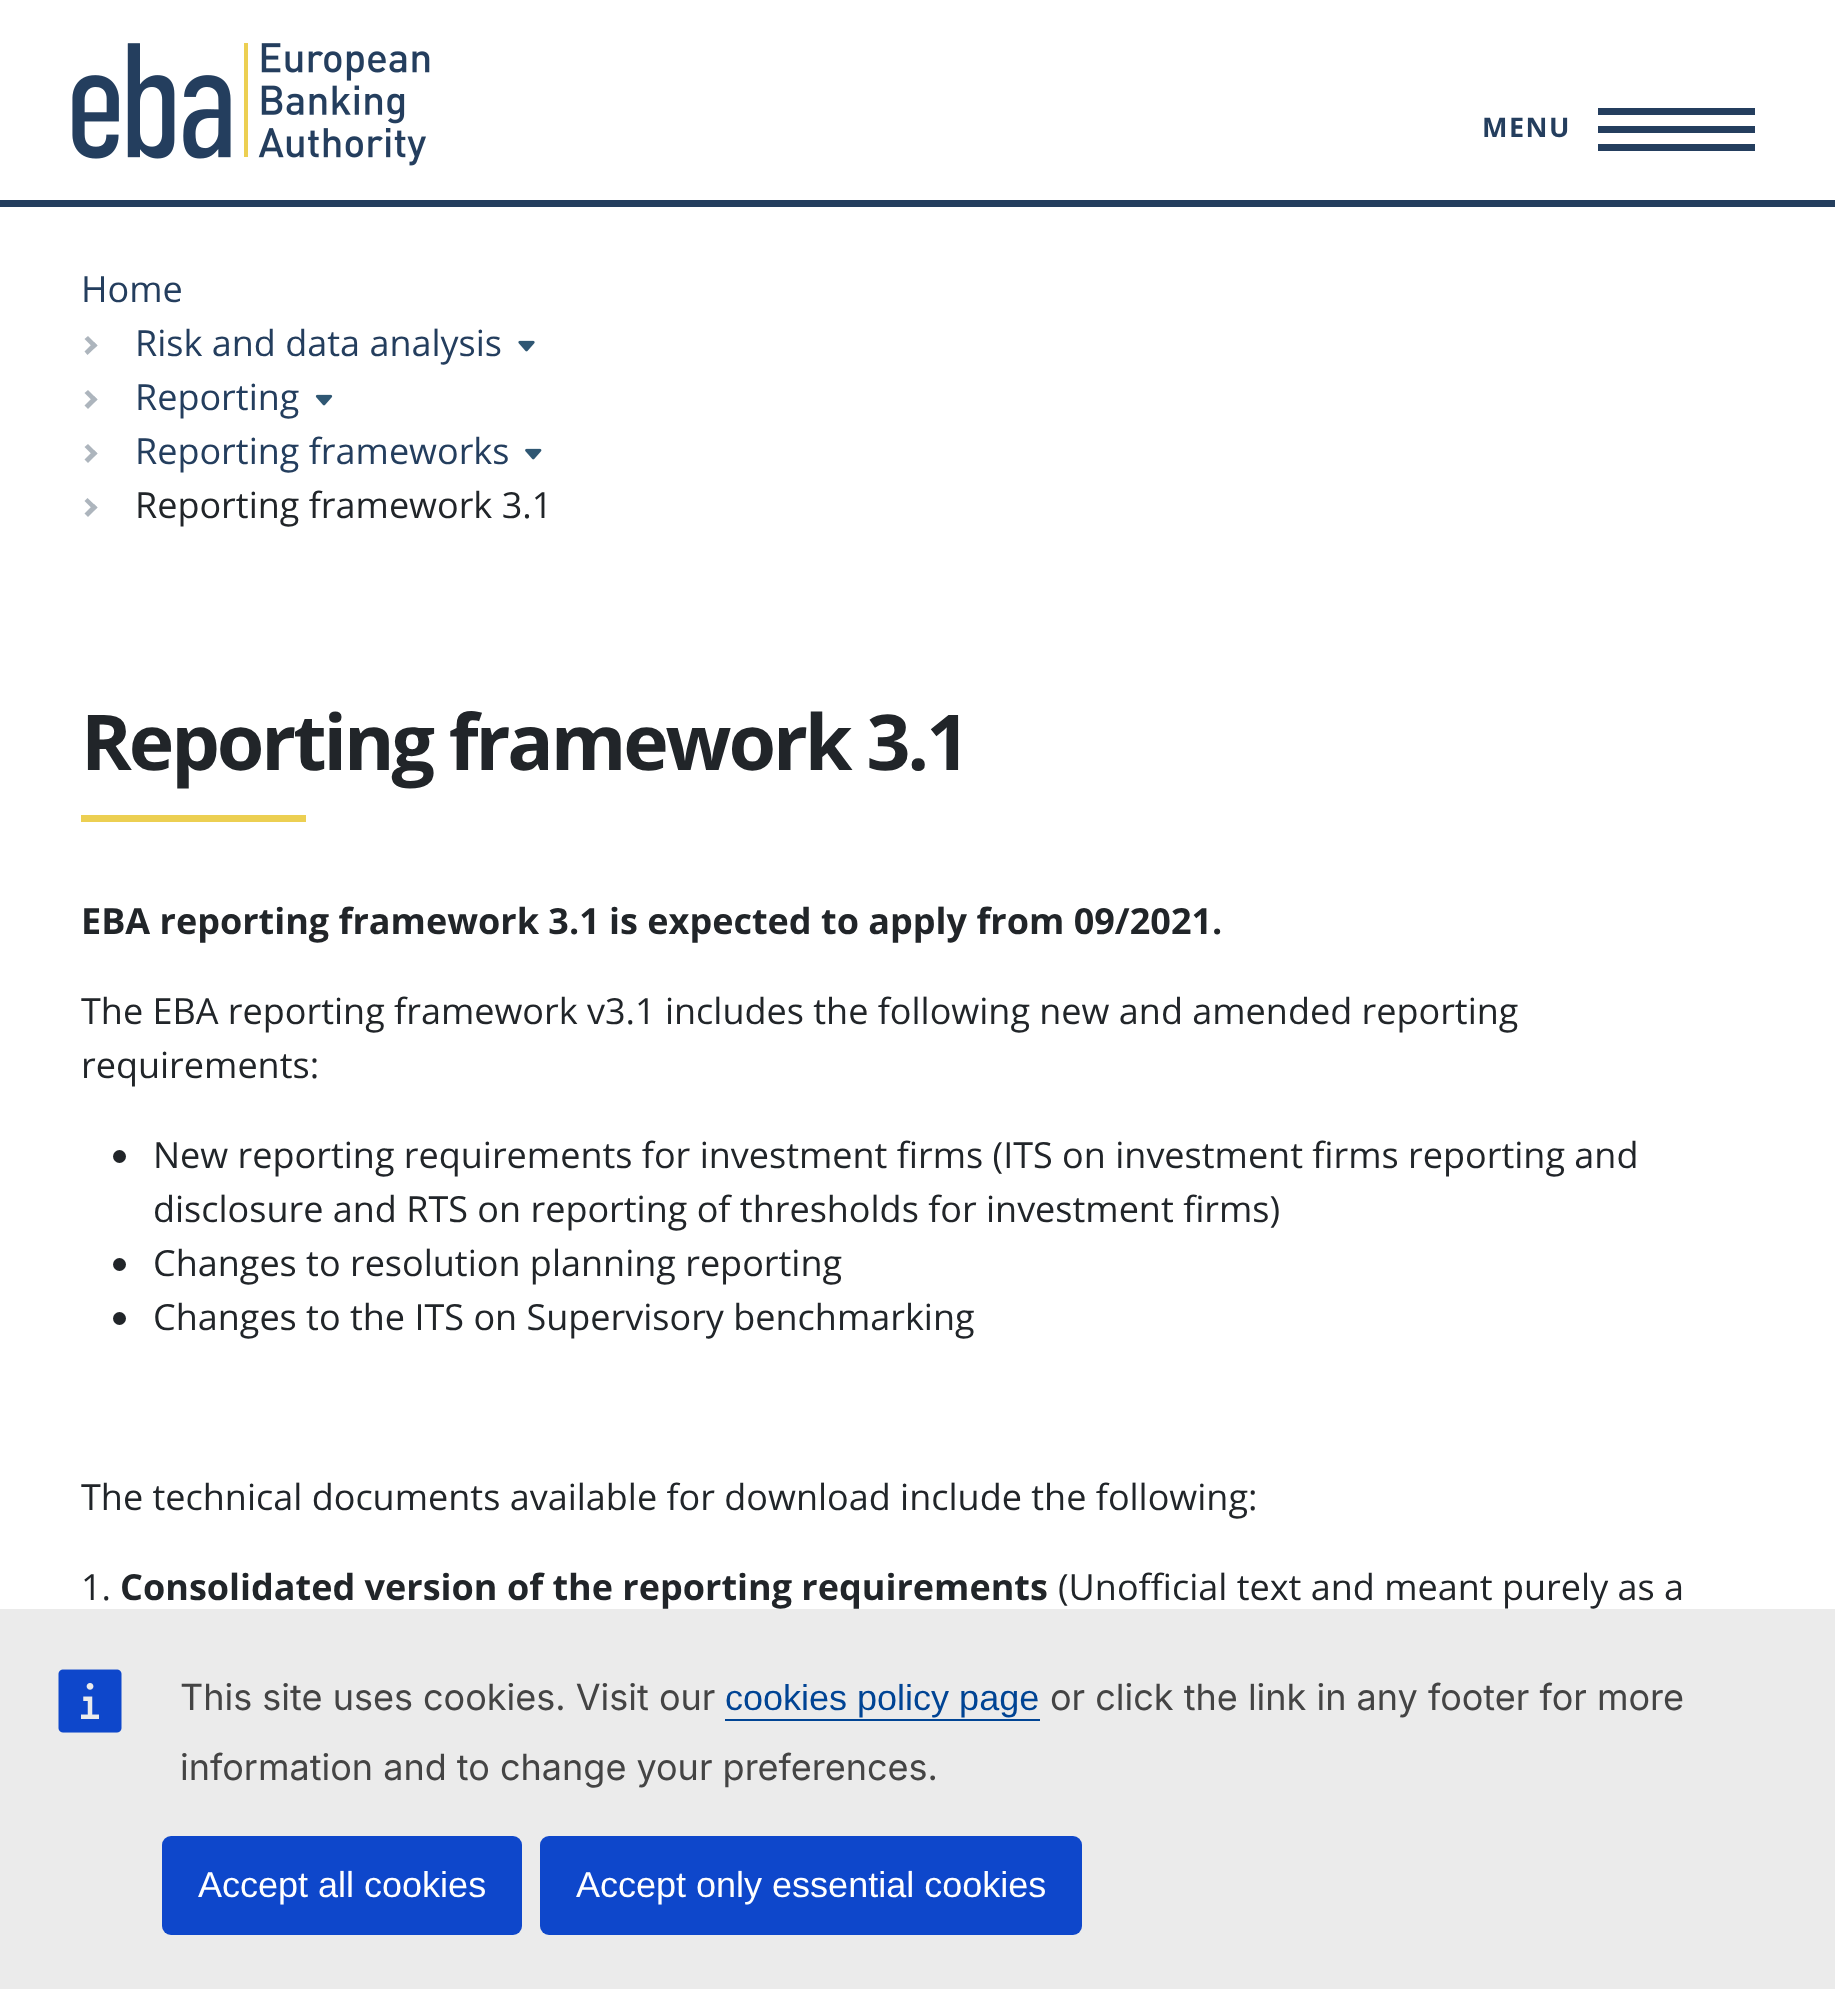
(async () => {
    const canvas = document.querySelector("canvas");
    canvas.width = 1835;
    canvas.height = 1989;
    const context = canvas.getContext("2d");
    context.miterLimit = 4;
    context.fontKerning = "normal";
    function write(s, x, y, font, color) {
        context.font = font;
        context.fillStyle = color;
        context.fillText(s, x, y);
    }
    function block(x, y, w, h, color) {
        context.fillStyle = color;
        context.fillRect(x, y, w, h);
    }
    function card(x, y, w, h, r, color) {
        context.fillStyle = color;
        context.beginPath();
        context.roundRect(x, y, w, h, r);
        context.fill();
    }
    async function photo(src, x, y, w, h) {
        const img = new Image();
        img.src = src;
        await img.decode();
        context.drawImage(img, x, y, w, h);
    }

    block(0, 0, 1835, 1989, "rgb(255, 255, 255)");
    block(0, 200, 1835, 7, "rgb(36, 62, 94)");
    await photo("media/1.png", 72, 43, 358, 123);
    context.letterSpacing = "1.5px";
    write("MENU", 1482, 137, "bold 27px Open Sans", "rgb(36, 62, 94)");
    block(1598, 126, 157, 7, "rgb(36, 62, 94)");
    block(1598, 108, 157, 7, "rgb(36, 62, 94)");
    block(1598, 144, 157, 7, "rgb(36, 62, 94)");
    context.letterSpacing = "0px";
    write("Home", 81, 302, "36px Open Sans", "rgb(36, 62, 94)");
    context.fillStyle = "rgb(173, 181, 189)";
    context.beginPath();
    context.moveTo(88, 336);
    context.lineTo(97.5, 345.5);
    context.lineTo(94, 348.5);
    context.lineTo(84.5, 339);
    context.closePath();
    context.fill();
    context.beginPath();
    context.moveTo(94, 342);
    context.lineTo(97.5, 345.5);
    context.lineTo(87.5, 355);
    context.lineTo(84.5, 351.5);
    context.closePath();
    context.fill();
    write("Risk and data analysis", 135, 356, "36px Open Sans", "rgb(36, 62, 94)");
    await photo("media/2.png", 518, 340, 17, 12);
    context.fillStyle = "rgb(173, 181, 189)";
    context.beginPath();
    context.moveTo(88, 390);
    context.lineTo(97.5, 399.5);
    context.lineTo(94, 402.5);
    context.lineTo(84.5, 393);
    context.closePath();
    context.fill();
    context.beginPath();
    context.moveTo(94, 396);
    context.lineTo(97.5, 399.5);
    context.lineTo(88, 409);
    context.lineTo(84.5, 405.5);
    context.closePath();
    context.fill();
    write("Reporting", 135, 410, "36px Open Sans", "rgb(36, 62, 94)");
    await photo("media/3.png", 315, 394, 18, 12);
    context.fillStyle = "rgb(173, 181, 189)";
    context.beginPath();
    context.moveTo(88, 444);
    context.lineTo(97.5, 453.5);
    context.lineTo(94, 456.5);
    context.lineTo(84.5, 447);
    context.closePath();
    context.fill();
    context.beginPath();
    context.moveTo(94, 450);
    context.lineTo(97.5, 453.5);
    context.lineTo(88, 463);
    context.lineTo(84.5, 459.5);
    context.closePath();
    context.fill();
    write("Reporting frameworks", 135, 464, "36px Open Sans", "rgb(36, 62, 94)");
    await photo("media/4.png", 525, 448, 17, 12);
    context.fillStyle = "rgb(173, 181, 189)";
    context.beginPath();
    context.moveTo(87.5, 498);
    context.lineTo(97.5, 507.5);
    context.lineTo(94, 510.5);
    context.lineTo(84.5, 501);
    context.closePath();
    context.fill();
    context.beginPath();
    context.moveTo(94, 504);
    context.lineTo(97.5, 507.5);
    context.lineTo(88, 517);
    context.lineTo(84.5, 513.5);
    context.closePath();
    context.fill();
    write("Reporting framework 3.1", 135, 518, "36px Open Sans", "rgb(33, 37, 41)");
    context.letterSpacing = "-3.1px";
    write("Reporting framework 3.1", 81, 770, "bold 77px Open Sans", "rgb(33, 37, 41)");
    block(81, 815, 225, 7, "rgb(236, 207, 82)");
    context.letterSpacing = "0px";
    write("EBA reporting framework 3.1 is expected to apply from 09/2021.", 81, 934, "bold 36px Open Sans", "rgb(33, 37, 41)");
    write("The EBA reporting framework v3.1 includes the following new and amended reporting", 81, 1024, "36px Open Sans", "rgb(33, 37, 41)");
    write("requirements:", 81, 1078, "36px Open Sans", "rgb(33, 37, 41)");
    context.beginPath();
    context.arc(119.5, 1156.5, 6.5, 0, Math.PI * 2);
    context.fill();
    write("New reporting requirements for investment firms (ITS on investment firms reporting and", 153, 1168, "36px Open Sans", "rgb(33, 37, 41)");
    write("disclosure and RTS on reporting of thresholds for investment firms)", 153, 1222, "36px Open Sans", "rgb(33, 37, 41)");
    context.beginPath();
    context.arc(119.5, 1264.5, 6.5, 0, Math.PI * 2);
    context.fill();
    write("Changes to resolution planning reporting", 153, 1276, "36px Open Sans", "rgb(33, 37, 41)");
    context.beginPath();
    context.arc(119.5, 1318.5, 6.5, 0, Math.PI * 2);
    context.fill();
    write("Changes to the ITS on Supervisory benchmarking", 153, 1330, "36px Open Sans", "rgb(33, 37, 41)");
    write("The technical documents available for download include the following:", 81, 1510, "36px Open Sans", "rgb(33, 37, 41)");
    write("1.", 81, 1600, "36px Open Sans", "rgb(33, 37, 41)");
    write("Consolidated version of the reporting requirements", 120, 1600, "bold 36px Open Sans", "rgb(33, 37, 41)");
    write("(Unofficial text and meant purely as a", 1058, 1600, "36px Open Sans", "rgb(33, 37, 41)");
    block(0, 1609, 1835, 380, "rgb(235, 235, 235)");
    await photo("media/5.png", 58, 1669, 64, 64);
    write("This site uses cookies. Visit our", 180, 1710, "36px Inter", "rgb(68, 68, 68)");
    write("cookies policy page", 725, 1710, "36px Liberation Sans", "rgb(0, 68, 148)");
    block(725, 1719, 315, 2, "rgb(0, 68, 148)");
    write("or click the link in any footer for more", 1050, 1710, "36px Inter", "rgb(68, 68, 68)");
    write("information and to change your preferences.", 180, 1780, "36px Inter", "rgb(68, 68, 68)");
    card(162, 1836, 360, 99, 9, "rgb(14, 71, 203)");
    write("Accept all cookies", 198, 1897, "36px Liberation Sans", "rgb(255, 255, 255)");
    card(540, 1836, 542, 99, 9, "rgb(14, 71, 203)");
    write("Accept only essential cookies", 576, 1897, "36px Liberation Sans", "rgb(255, 255, 255)");
})();
